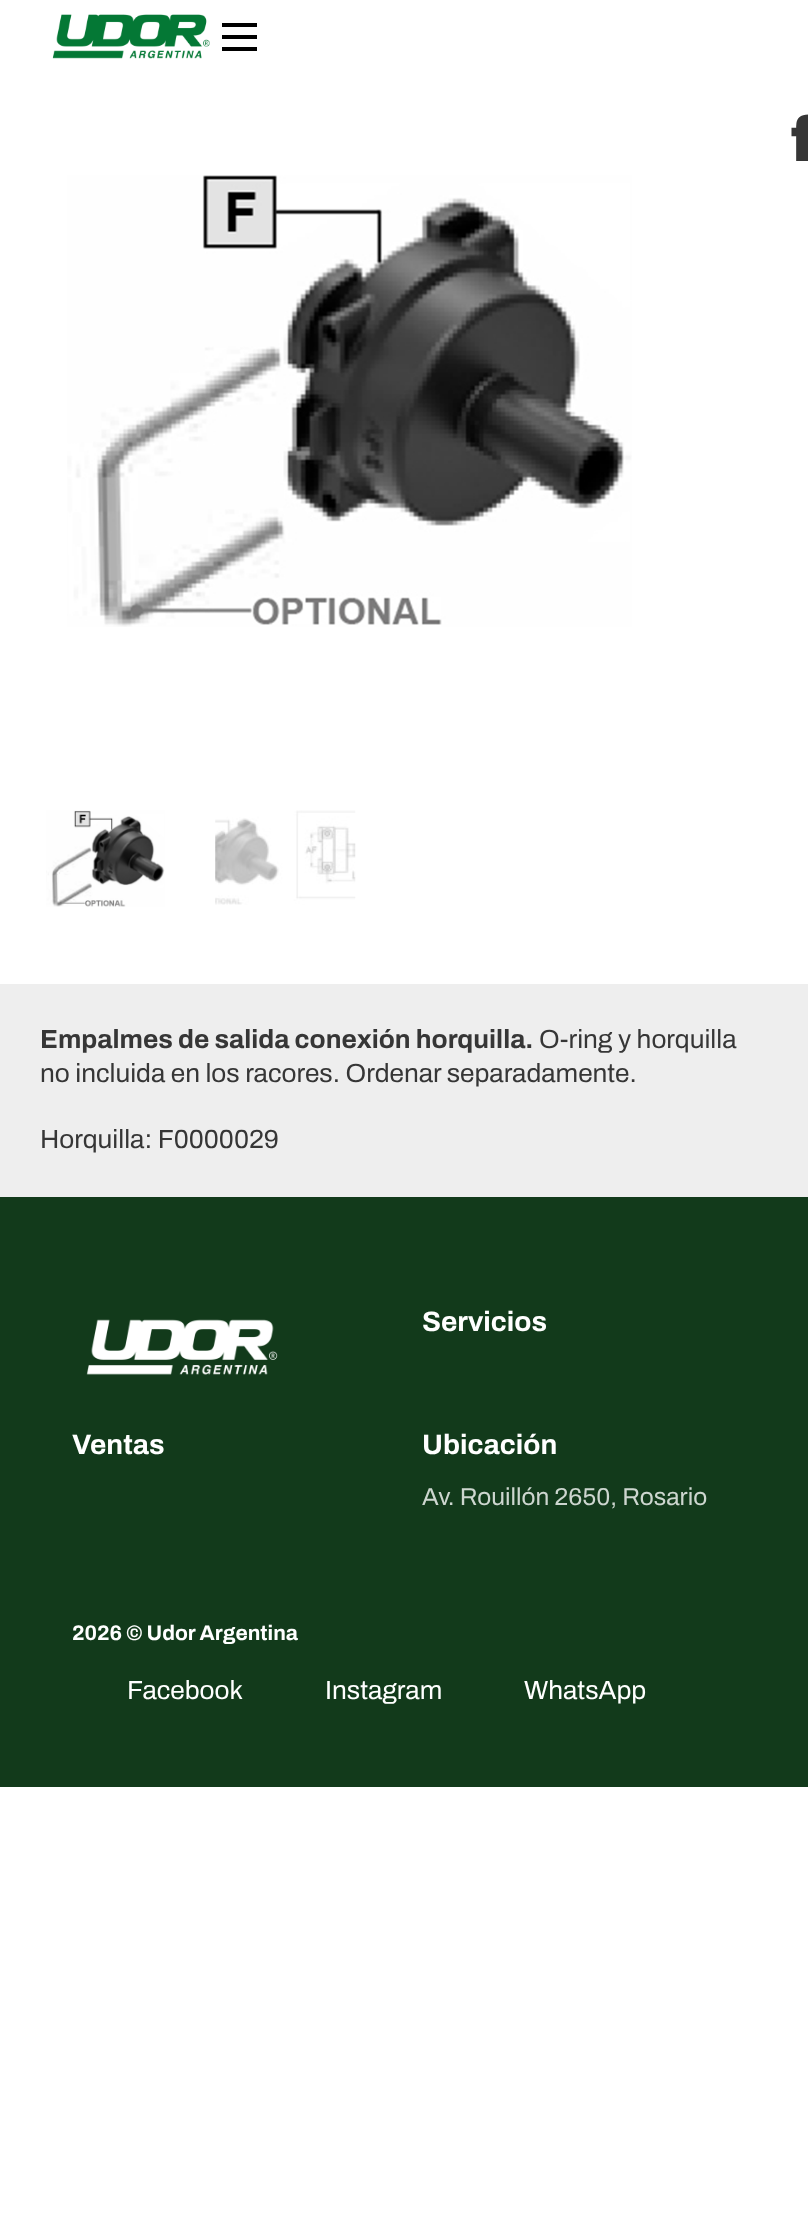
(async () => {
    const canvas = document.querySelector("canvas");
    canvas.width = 808;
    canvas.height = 2227;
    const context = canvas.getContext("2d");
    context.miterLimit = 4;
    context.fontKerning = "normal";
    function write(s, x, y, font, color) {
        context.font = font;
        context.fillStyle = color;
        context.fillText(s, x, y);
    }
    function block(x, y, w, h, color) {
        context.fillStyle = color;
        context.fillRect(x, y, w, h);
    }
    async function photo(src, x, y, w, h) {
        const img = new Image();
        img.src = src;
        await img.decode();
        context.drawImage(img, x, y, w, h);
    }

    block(0, 0, 808, 2227, "rgb(255, 255, 255)");
    await photo("media/1.png", 52, 14, 158, 45);
    block(222, 23, 35, 4, "rgb(0, 0, 0)");
    block(222, 35, 35, 4, "rgb(0, 0, 0)");
    block(222, 47, 35, 4, "rgb(0, 0, 0)");
    write("f", 791, 161, "900 63px Archivo Black", "rgb(54, 54, 54)");
    await photo("media/2.png", 67, 175, 565, 452);
    await photo("media/3.png", 46, 810, 119, 97);
    await photo("media/4.png", 215, 810, 141, 95);
    block(0, 984, 808, 213, "rgb(238, 238, 238)");
    write("Empalmes de salida conexión horquilla.", 40, 1048, "bold 26.25px Archivo", "rgb(54, 54, 54)");
    write("O-ring y horquilla", 539, 1048, "26.25px Archivo", "rgb(54, 54, 54)");
    write("no incluida en los racores. Ordenar separadamente.", 40, 1082, "26.25px Archivo", "rgb(54, 54, 54)");
    write("Horquilla: F0000029", 40, 1148, "26.25px Archivo", "rgb(54, 54, 54)");
    block(0, 1197, 808, 590, "rgb(18, 58, 27)");
    await photo("media/5.png", 86, 1319, 192, 56);
    write("Servicios", 422, 1331, "bold 28px Archivo", "rgb(255, 255, 255)");
    write("Ventas", 72, 1454, "bold 28px Archivo", "rgb(255, 255, 255)");
    write("Ubicación", 422, 1454, "bold 28px Archivo", "rgb(255, 255, 255)");
    write("Av. Rouillón 2650, Rosario", 422, 1505, "24.5px Archivo", "rgb(205, 214, 207)");
    write("2026 © Udor Argentina", 72, 1640, "bold 21px Archivo", "rgb(255, 255, 255)");
    write("Facebook", 127, 1699, "26.25px Archivo", "rgb(255, 255, 255)");
    write("Instagram", 325, 1699, "26.25px Archivo", "rgb(255, 255, 255)");
    write("WhatsApp", 524, 1699, "26.25px Archivo", "rgb(255, 255, 255)");
})();
